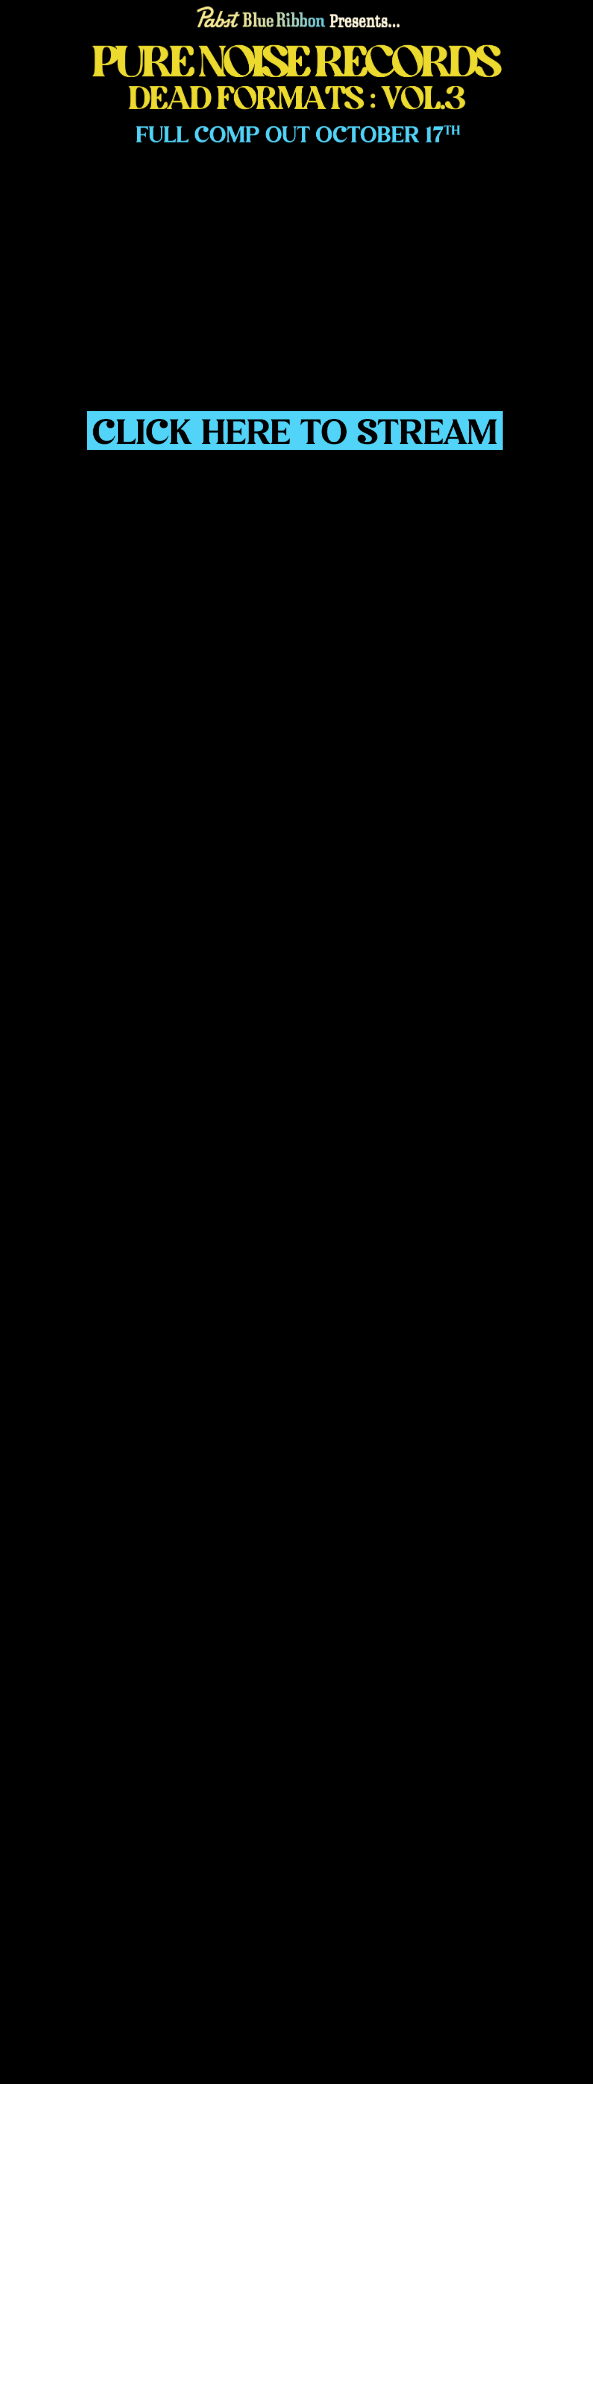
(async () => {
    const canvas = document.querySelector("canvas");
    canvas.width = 593;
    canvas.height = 2384;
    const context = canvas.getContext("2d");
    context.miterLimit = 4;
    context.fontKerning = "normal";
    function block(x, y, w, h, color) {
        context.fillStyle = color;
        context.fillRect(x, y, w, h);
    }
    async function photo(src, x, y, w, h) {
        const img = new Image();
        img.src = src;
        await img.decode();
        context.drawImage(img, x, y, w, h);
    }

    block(0, 0, 593, 2384, "rgb(255, 255, 255)");
    block(0, 0, 593, 2084, "rgb(0, 0, 0)");
    await photo("media/1.png", 92, 6, 410, 137);
    await photo("media/2.png", 87, 411, 416, 39);
})();
